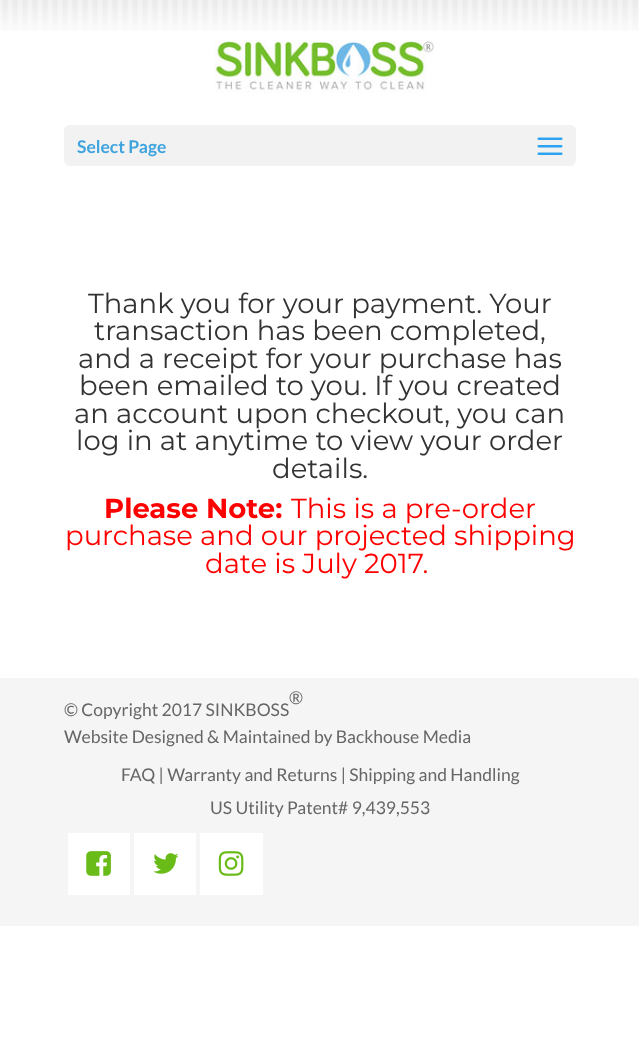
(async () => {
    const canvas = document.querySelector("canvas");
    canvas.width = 639;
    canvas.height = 1056;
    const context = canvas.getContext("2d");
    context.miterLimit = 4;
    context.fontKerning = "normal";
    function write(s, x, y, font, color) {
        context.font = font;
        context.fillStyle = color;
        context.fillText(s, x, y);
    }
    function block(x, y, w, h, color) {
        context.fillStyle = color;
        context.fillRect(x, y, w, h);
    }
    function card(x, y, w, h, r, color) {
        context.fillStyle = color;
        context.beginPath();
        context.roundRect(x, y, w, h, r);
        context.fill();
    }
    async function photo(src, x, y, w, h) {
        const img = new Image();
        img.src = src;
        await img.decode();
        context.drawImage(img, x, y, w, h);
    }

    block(0, 0, 639, 1056, "rgb(255, 255, 255)");
    await photo("media/1.png", 0, 0, 639, 31);
    await photo("media/2.png", 214, 40, 220, 53);
    card(64, 125, 512, 41, 6, "rgb(242, 242, 242)");
    write("Select Page", 77, 153, "bold 17.5px Lato", "rgb(63, 164, 222)");
    await photo("media/3.png", 537, 137, 26, 18);
    write("Thank you for your payment. Your", 88, 313, "27.5px Montserrat", "rgb(51, 51, 51)");
    write("transaction has been completed,", 94, 340, "27.5px Montserrat", "rgb(51, 51, 51)");
    write("and a receipt for your purchase has", 78, 368, "27.5px Montserrat", "rgb(51, 51, 51)");
    write("been emailed to you. If you created", 79, 395, "27.5px Montserrat", "rgb(51, 51, 51)");
    write("an account upon checkout, you can", 74, 423, "27.5px Montserrat", "rgb(51, 51, 51)");
    write("log in at anytime to view your order", 76, 450, "27.5px Montserrat", "rgb(51, 51, 51)");
    write("details.", 272, 478, "27.5px Montserrat", "rgb(51, 51, 51)");
    write("Please Note:", 104, 518, "bold 27.5px Montserrat", "rgb(255, 0, 0)");
    write("This is a pre-order", 291, 518, "27.5px Montserrat", "rgb(255, 0, 0)");
    write("purchase and our projected shipping", 65, 545, "27.5px Montserrat", "rgb(255, 0, 0)");
    write("date is July 2017.", 205, 573, "27.5px Montserrat", "rgb(255, 0, 0)");
    block(0, 678, 639, 248, "rgb(245, 245, 245)");
    write("®", 289, 704, "17.5px Lato", "rgb(102, 102, 102)");
    write("© Copyright 2017 SINKBOSS", 64, 716, "17.5px Lato", "rgb(102, 102, 102)");
    write("Website Designed & Maintained by Backhouse Media", 64, 743, "17.5px Lato", "rgb(102, 102, 102)");
    write("FAQ | Warranty and Returns | Shipping and Handling", 121, 781, "17.5px Lato", "rgb(102, 102, 102)");
    write("US Utility Patent# 9,439,553", 210, 814, "17.5px Lato", "rgb(102, 102, 102)");
    block(68, 833, 62, 62, "rgb(255, 255, 255)");
    await photo("media/4.png", 86, 851, 25, 25);
    block(134, 833, 62, 62, "rgb(255, 255, 255)");
    await photo("media/5.png", 153, 853, 26, 21);
    block(200, 833, 63, 62, "rgb(255, 255, 255)");
    await photo("media/6.png", 218, 851, 26, 25);
})();
